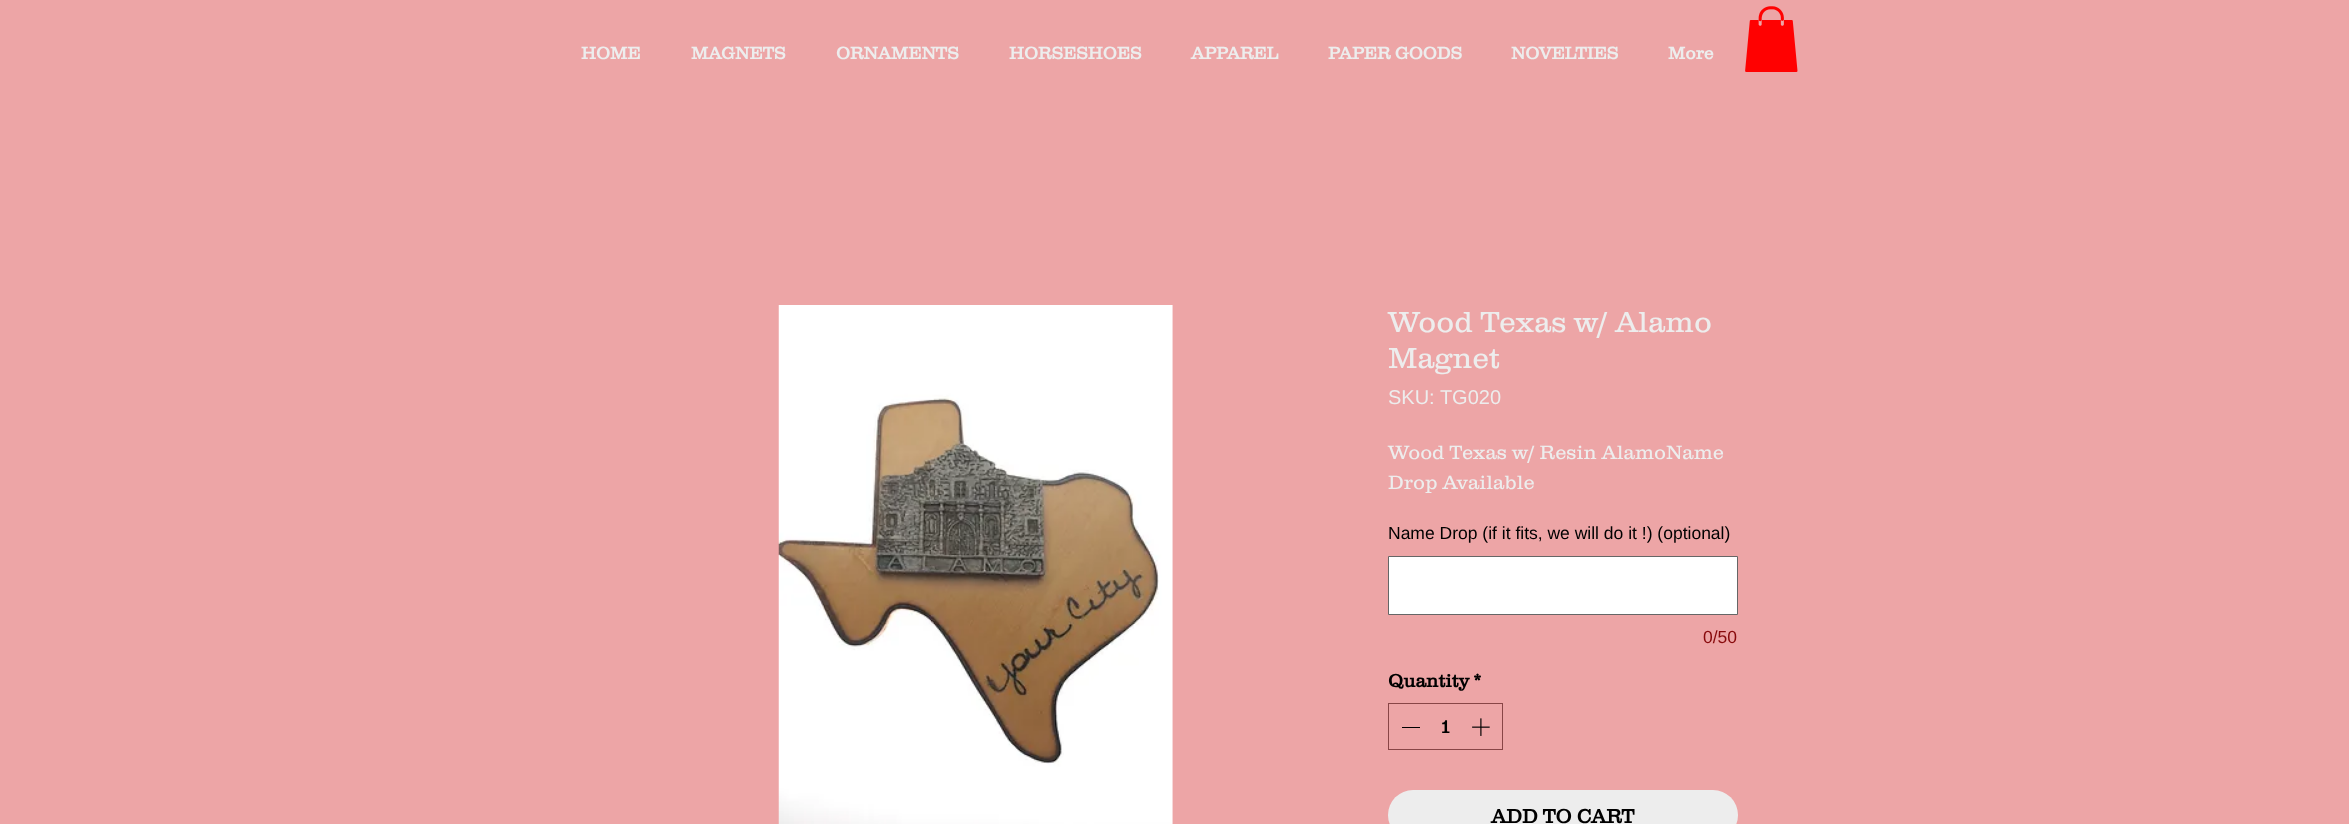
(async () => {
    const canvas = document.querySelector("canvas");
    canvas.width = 2349;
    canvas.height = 824;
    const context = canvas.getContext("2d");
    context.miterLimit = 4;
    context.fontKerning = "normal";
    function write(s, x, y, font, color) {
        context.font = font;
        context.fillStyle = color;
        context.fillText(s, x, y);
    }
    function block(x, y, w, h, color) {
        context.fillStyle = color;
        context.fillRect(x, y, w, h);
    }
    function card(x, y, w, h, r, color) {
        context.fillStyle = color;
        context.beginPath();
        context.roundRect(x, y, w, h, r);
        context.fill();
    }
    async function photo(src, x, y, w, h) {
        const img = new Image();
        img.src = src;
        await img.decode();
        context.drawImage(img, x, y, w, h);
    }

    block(0, 0, 2349, 824, "rgb(237, 165, 166)");
    write("HOME", 581, 59, "bold 17.5px 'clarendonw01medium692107'", "rgb(237, 237, 237)");
    write("MAGNETS", 691, 59, "bold 17.5px 'clarendonw01medium692107'", "rgb(237, 237, 237)");
    write("ORNAMENTS", 836, 59, "bold 17.5px 'clarendonw01medium692107'", "rgb(237, 237, 237)");
    write("HORSESHOES", 1009, 59, "bold 17.5px 'clarendonw01medium692107'", "rgb(237, 237, 237)");
    write("APPAREL", 1191, 59, "bold 17.5px 'clarendonw01medium692107'", "rgb(237, 237, 237)");
    write("PAPER GOODS", 1328, 59, "bold 17.5px 'clarendonw01medium692107'", "rgb(237, 237, 237)");
    write("NOVELTIES", 1511, 59, "bold 17.5px 'clarendonw01medium692107'", "rgb(237, 237, 237)");
    write("More", 1668, 59, "bold 17.5px 'clarendonw01medium692107'", "rgb(237, 237, 237)");
    await photo("media/1.png", 1745, 6, 53, 66);
    await photo("media/2.png", 778, 305, 395, 519);
    write("Wood Texas w/ Alamo", 1388, 332, "300 30px 'clarendonw01medium692107'", "rgb(237, 237, 237)");
    write("Magnet", 1388, 368, "300 30px 'clarendonw01medium692107'", "rgb(237, 237, 237)");
    write("SKU: TG020", 1388, 404, "20px Liberation Sans", "rgb(237, 237, 237)");
    write("Wood Texas w/ Resin AlamoName", 1388, 459, "300 20px 'clarendonw01medium692107'", "rgb(237, 237, 237)");
    write("Drop Available", 1388, 489, "300 20px 'clarendonw01medium692107'", "rgb(237, 237, 237)");
    write("Name Drop (if it fits, we will do it !) (optional)", 1388, 539, "17.5px Liberation Sans", "rgb(0, 0, 0)");
    context.fillStyle = "rgb(255, 255, 255)";
    context.beginPath();
    context.rect(1388.5, 556.5, 349, 58);
    context.fill();
    context.strokeStyle = "rgb(102, 102, 102)";
    context.stroke();
    write("0/50", 1703, 643, "17.5px Liberation Sans", "rgb(136, 10, 12)");
    write("Quantity", 1388, 687, "bold 18.75px 'clarendonw01medium692107'", "rgb(0, 0, 0)");
    write("*", 1473, 687, "bold 18.75px 'clarendonw01medium692107'", "rgb(0, 0, 0)");
    context.strokeStyle = "rgb(136, 69, 70)";
    context.strokeRect(1388.5, 703.5, 114, 46);
    block(1402, 727, 18, 1, "rgb(0, 0, 0)");
    write("1", 1440, 733, "bold 18.75px 'clarendonw01medium692107'", "rgb(0, 0, 0)");
    await photo("media/3.png", 1472, 718, 18, 18);
    card(1388, 790, 350, 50, 25, "rgb(237, 237, 237)");
    write("ADD TO CART", 1491, 823, "bold 20px 'clarendonw01medium692107'", "rgb(0, 0, 0)");
})();
